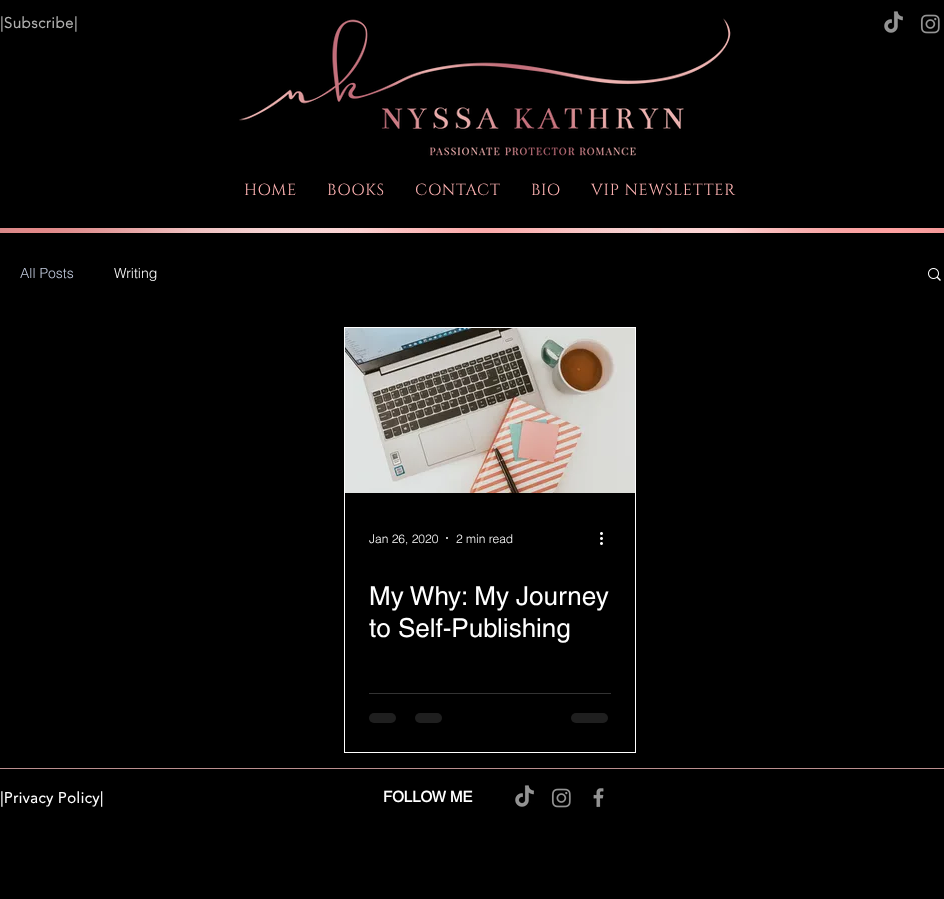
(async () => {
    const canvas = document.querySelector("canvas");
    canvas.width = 944;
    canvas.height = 899;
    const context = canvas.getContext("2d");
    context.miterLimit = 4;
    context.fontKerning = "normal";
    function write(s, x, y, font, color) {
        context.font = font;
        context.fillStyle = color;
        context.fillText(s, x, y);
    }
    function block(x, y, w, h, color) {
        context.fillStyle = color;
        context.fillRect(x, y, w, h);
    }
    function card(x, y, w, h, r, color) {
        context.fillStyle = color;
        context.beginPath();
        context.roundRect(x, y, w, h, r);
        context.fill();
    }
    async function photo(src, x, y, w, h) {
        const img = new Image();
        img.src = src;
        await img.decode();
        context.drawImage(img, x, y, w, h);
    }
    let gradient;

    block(0, 0, 944, 899, "rgb(0, 0, 0)");
    context.letterSpacing = "0.5px";
    write("|Subscribe|", 0, 28, "bold 15px 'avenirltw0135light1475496'", "rgb(175, 175, 174)");
    await photo("media/1.png", 239, 18, 492, 138);
    await photo("media/2.png", 884, 11, 19, 22);
    await photo("media/3.png", 920, 14, 20, 20);
    context.letterSpacing = "0.75px";
    write("HOME", 244, 195, "16px Cinzel", "rgb(255, 179, 179)");
    write("BOOKS", 327, 195, "16px Cinzel", "rgb(255, 179, 179)");
    write("CONTACT", 415, 195, "16px Cinzel", "rgb(255, 179, 179)");
    write("BIO", 531, 195, "16px Cinzel", "rgb(255, 179, 179)");
    write("VIP NEWSLETTER", 591, 195, "16px Cinzel", "rgb(255, 179, 179)");
    gradient = context.createRadialGradient(479, 230, 0, 479, 230, 501);
    gradient.addColorStop(0, "rgb(255, 255, 255)");
    gradient.addColorStop(1, "rgb(0, 0, 0)");
    context.fillStyle = gradient;
    context.fillRect(0, 228, 944, 5);
    gradient = context.createRadialGradient(274, 231, 0, 274, 231, 706);
    gradient.addColorStop(0, "rgb(255, 255, 255)");
    gradient.addColorStop(0.53, "rgba(255, 255, 255, 0)");
    context.fillStyle = gradient;
    context.fillRect(0, 228, 640, 5);
    gradient = context.createRadialGradient(907, 231, 0, 907, 231, 907);
    gradient.addColorStop(0, "rgba(207, 45, 45, 0.75)");
    gradient.addColorStop(0.5, "rgba(207, 45, 45, 0)");
    context.fillStyle = gradient;
    context.fillRect(467, 228, 477, 5);
    gradient = context.createRadialGradient(429, 230, 0, 429, 230, 551);
    gradient.addColorStop(0, "rgb(252, 171, 171)");
    gradient.addColorStop(0.65, "rgba(252, 171, 171, 0)");
    context.fillStyle = gradient;
    context.fillRect(79, 228, 700, 5);
    gradient = context.createRadialGradient(727, 231, 0, 727, 231, 727);
    gradient.addColorStop(0, "rgb(255, 255, 255)");
    gradient.addColorStop(0.45, "rgba(255, 255, 255, 0)");
    context.fillStyle = gradient;
    context.fillRect(407, 228, 537, 5);
    gradient = context.createRadialGradient(890, 231, 0, 890, 231, 890);
    gradient.addColorStop(0, "rgb(255, 161, 161)");
    gradient.addColorStop(0.35, "rgba(255, 161, 161, 0)");
    context.fillStyle = gradient;
    context.fillRect(585, 228, 359, 5);
    gradient = context.createRadialGradient(486, 230, 0, 486, 230, 494);
    gradient.addColorStop(0, "rgb(252, 171, 171)");
    gradient.addColorStop(0.35, "rgba(252, 171, 171, 0)");
    context.fillStyle = gradient;
    context.fillRect(340, 228, 315, 5);
    gradient = context.createRadialGradient(657, 228, 0, 657, 228, 657);
    gradient.addColorStop(0, "rgb(255, 202, 202)");
    gradient.addColorStop(0.01, "rgba(255, 202, 202, 0)");
    context.fillStyle = gradient;
    context.fillRect(650, 228, 13, 5);
    gradient = context.createRadialGradient(188, 231, 0, 188, 231, 792);
    gradient.addColorStop(0, "rgb(255, 255, 255)");
    gradient.addColorStop(0.35, "rgba(255, 255, 255, 0)");
    context.fillStyle = gradient;
    context.fillRect(0, 228, 459, 5);
    gradient = context.createRadialGradient(37, 231, 0, 37, 231, 943);
    gradient.addColorStop(0, "rgb(226, 136, 136)");
    gradient.addColorStop(0.35, "rgba(226, 136, 136, 0)");
    context.fillStyle = gradient;
    context.fillRect(0, 228, 359, 5);
    context.letterSpacing = "0px";
    write("All Posts", 20, 278, "300 14px helvetica", "rgb(192, 201, 220)");
    write("Writing", 114, 278, "300 14px helvetica", "rgb(255, 255, 255)");
    await photo("media/4.png", 928, 268, 13, 13);
    context.strokeStyle = "rgb(255, 255, 255)";
    context.strokeRect(344.5, 327.5, 291, 425);
    await photo("media/5.png", 345, 328, 290, 165);
    write("Jan 26, 2020", 369, 543, "300 12px helvetica", "rgb(255, 255, 255)");
    context.beginPath();
    context.arc(447, 538, 1, 0, Math.PI * 2);
    context.fill();
    write("2 min read", 456, 543, "300 12px helvetica", "rgb(255, 255, 255)");
    await photo("media/6.png", 600, 532, 3, 13);
    write("My Why: My Journey", 369, 605, "26px helvetica", "rgb(255, 255, 255)");
    write("to Self-Publishing", 369, 637, "26px helvetica", "rgb(255, 255, 255)");
    block(369, 693, 242, 1, "rgb(51, 51, 51)");
    card(369, 713, 27, 10, 5, "rgb(31, 31, 31)");
    card(415, 713, 27, 10, 5, "rgb(31, 31, 31)");
    card(571, 713, 37, 10, 5, "rgb(31, 31, 31)");
    block(0, 768, 944, 1, "rgb(187, 143, 143)");
    context.letterSpacing = "0.5px";
    write("|Privacy Policy|", 0, 803, "bold 15px 'avenirltw0135light1475496'", "rgb(255, 255, 255)");
    context.letterSpacing = "0px";
    write("FOLLOW ME", 383, 802, "bold 15px helvetica", "rgb(255, 255, 255)");
    await photo("media/2.png", 515, 785, 19, 22);
    await photo("media/3.png", 551, 788, 20, 20);
    await photo("media/7.png", 593, 788, 11, 20);
})();
